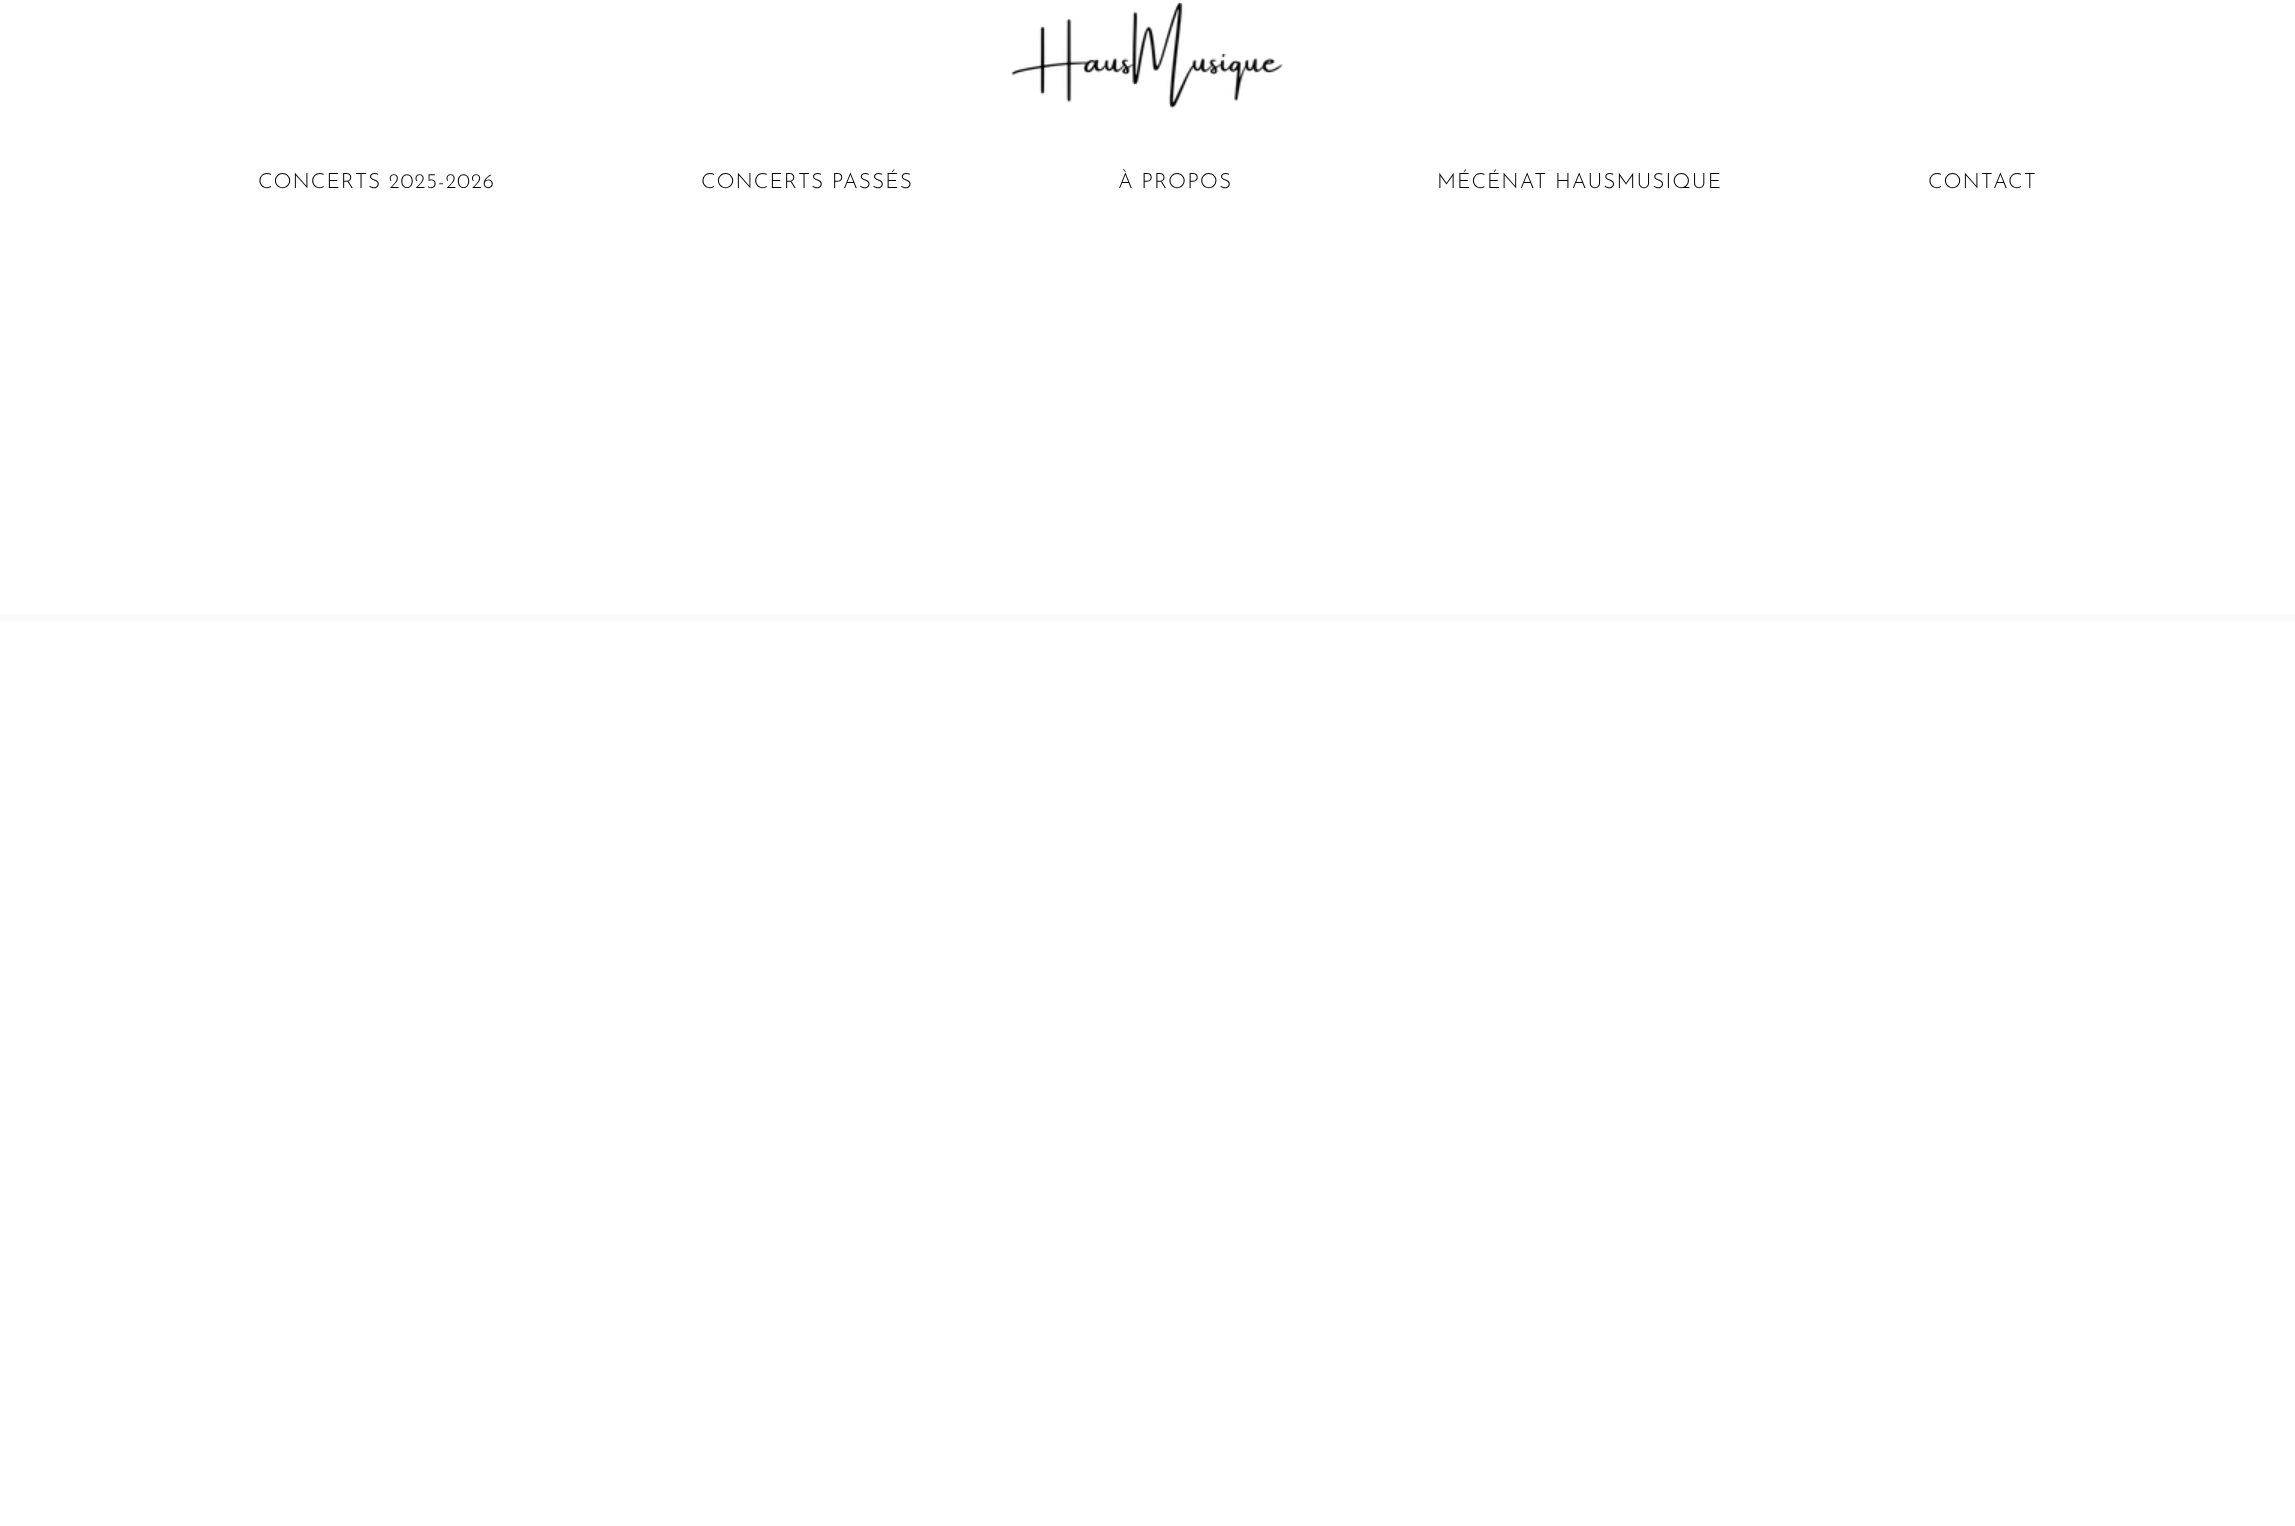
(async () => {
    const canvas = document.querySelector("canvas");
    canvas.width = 2295;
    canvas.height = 1526;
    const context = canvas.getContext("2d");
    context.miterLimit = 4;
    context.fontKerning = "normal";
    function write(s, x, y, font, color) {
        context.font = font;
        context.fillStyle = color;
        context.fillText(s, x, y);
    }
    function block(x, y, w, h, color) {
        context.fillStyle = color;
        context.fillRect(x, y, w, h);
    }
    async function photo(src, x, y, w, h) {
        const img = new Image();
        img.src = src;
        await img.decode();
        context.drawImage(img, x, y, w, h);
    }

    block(0, 0, 2295, 1526, "rgb(255, 255, 255)");
    await photo("media/1.png", 1011, 2, 272, 107);
    context.letterSpacing = "1px";
    write("CONCERTS 2025-2026", 258, 188, "100 21px Josefin Sans", "rgb(0, 0, 0)");
    write("CONCERTS PASSÉS", 701, 188, "100 21px Josefin Sans", "rgb(0, 0, 0)");
    write("À PROPOS", 1118, 188, "100 21px Josefin Sans", "rgb(0, 0, 0)");
    write("MÉCÉNAT HAUSMUSIQUE", 1437, 188, "100 21px Josefin Sans", "rgb(0, 0, 0)");
    write("CONTACT", 1928, 188, "100 21px Josefin Sans", "rgb(0, 0, 0)");
    block(0, 614, 2295, 7, "rgb(250, 250, 250)");
})();
